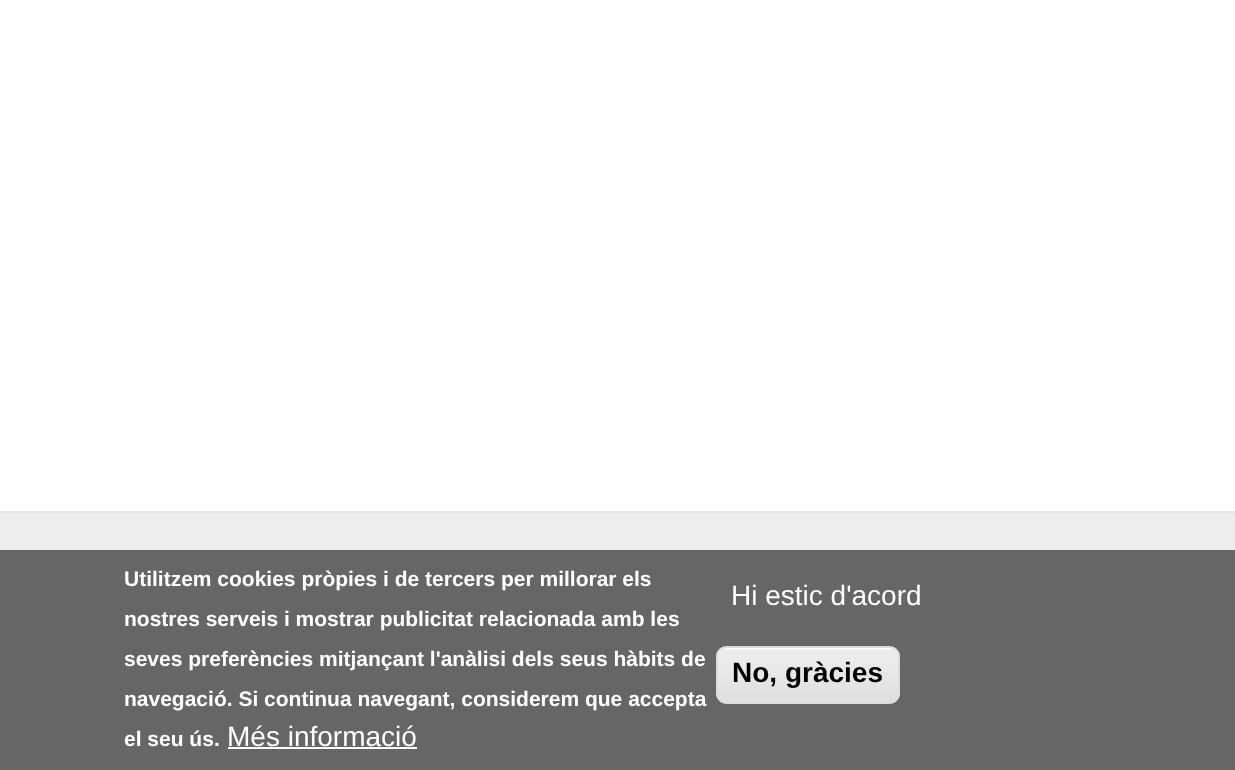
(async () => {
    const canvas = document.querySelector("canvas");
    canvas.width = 1235;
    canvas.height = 770;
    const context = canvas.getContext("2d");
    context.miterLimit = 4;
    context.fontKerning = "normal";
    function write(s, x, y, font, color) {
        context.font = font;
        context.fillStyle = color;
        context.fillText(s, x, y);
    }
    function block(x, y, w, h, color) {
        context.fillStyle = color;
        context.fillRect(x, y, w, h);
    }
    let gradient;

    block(0, 0, 1235, 770, "rgb(255, 255, 255)");
    block(0, 513, 1235, 37, "rgb(237, 237, 237)");
    block(0, 511, 1235, 2, "rgb(229, 229, 229)");
    block(0, 550, 1235, 220, "rgb(102, 102, 102)");
    write("Utilitzem cookies pròpies i de tercers per millorar els", 124, 586, "bold 21px Liberation Sans", "rgb(255, 255, 255)");
    write("nostres serveis i mostrar publicitat relacionada amb les", 124, 626, "bold 21px Liberation Sans", "rgb(255, 255, 255)");
    write("seves preferències mitjançant l'anàlisi dels seus hàbits de", 124, 666, "bold 21px Liberation Sans", "rgb(255, 255, 255)");
    write("navegació. Si continua navegant, considerem que accepta", 124, 706, "bold 21px Liberation Sans", "rgb(255, 255, 255)");
    write("el seu ús.", 124, 746, "bold 21px Liberation Sans", "rgb(255, 255, 255)");
    write("Més informació", 227, 746, "28px Liberation Sans", "rgb(255, 255, 255)");
    block(228, 747, 189, 2, "rgb(255, 255, 255)");
    write("Hi estic d'acord", 731, 605, "28px Liberation Sans", "rgb(255, 255, 255)");
    context.save();
    context.beginPath();
    context.roundRect(716, 646, 184, 58, 11);
    context.clip();
    gradient = context.createLinearGradient(808, 648, 808, 702);
    gradient.addColorStop(0.05, "rgb(237, 237, 237)");
    gradient.addColorStop(1, "rgb(223, 223, 223)");
    context.fillStyle = gradient;
    context.fillRect(716, 648, 184, 54);
    context.restore();
    context.beginPath();
    context.moveTo(726, 649);
    context.lineTo(889, 649);
    context.bezierCurveTo(894, 649, 898, 653, 898, 658);
    context.lineTo(898, 657);
    context.bezierCurveTo(898, 652, 894, 648, 889, 648);
    context.lineTo(727, 648);
    context.bezierCurveTo(722, 648, 718, 652, 718, 657);
    context.lineTo(718, 658);
    context.bezierCurveTo(718, 653, 721, 649, 726, 649);
    context.closePath();
    context.fill();
    context.beginPath();
    context.roundRect(717, 647, 182, 56, 10);
    context.strokeStyle = "rgb(220, 220, 220)";
    context.lineWidth = 2;
    context.stroke();
    write("No, gràcies", 732, 682, "bold 28px Liberation Sans", "rgb(0, 0, 0)");
})();
